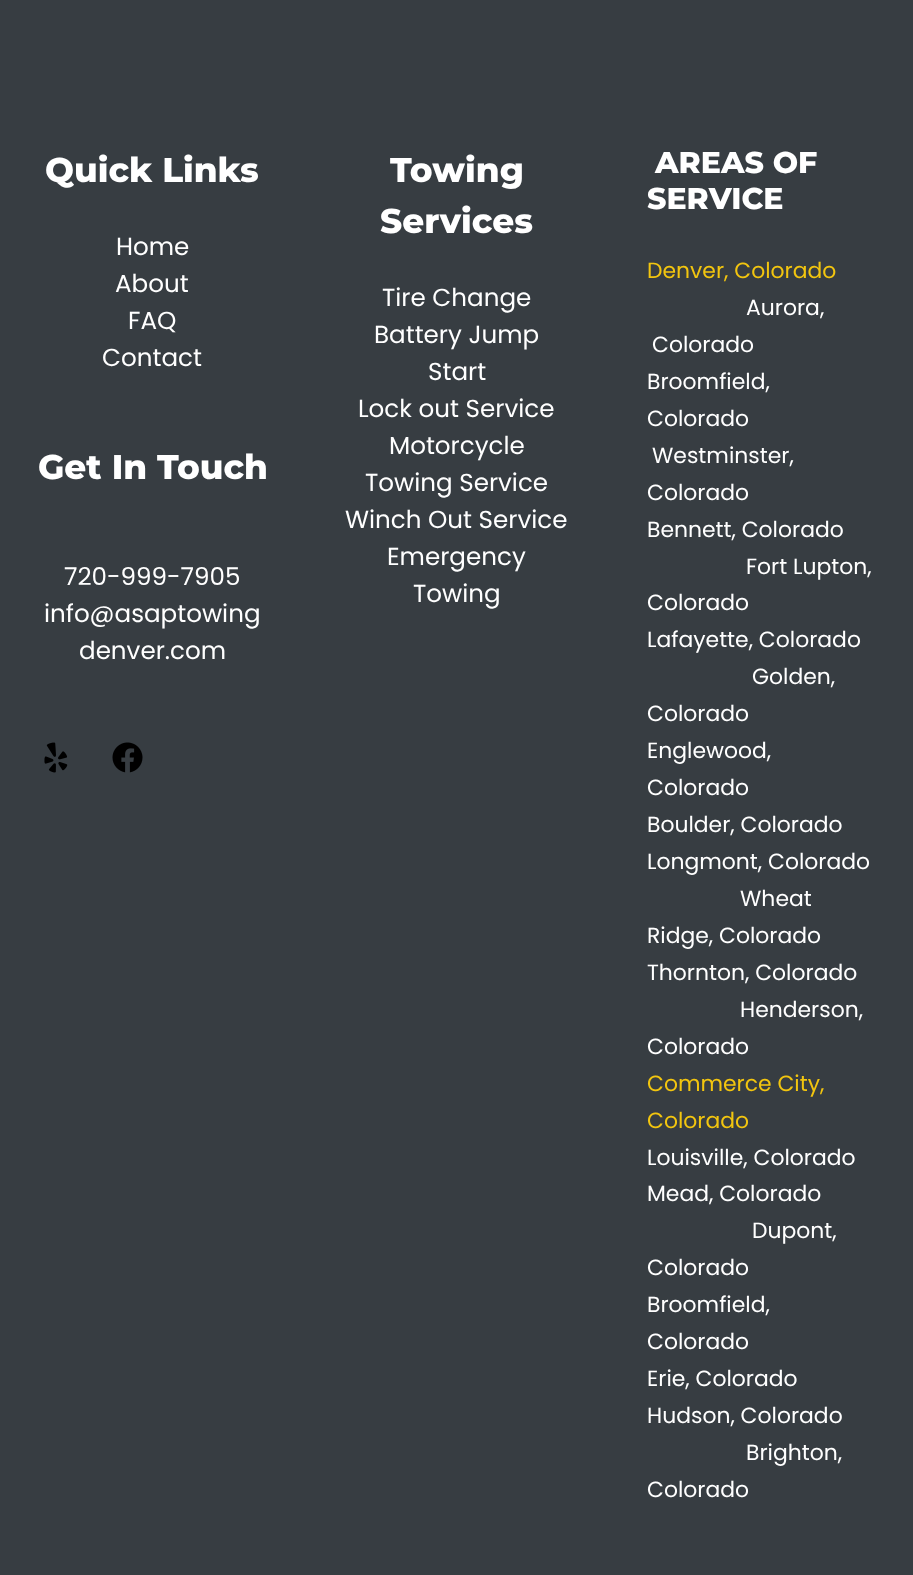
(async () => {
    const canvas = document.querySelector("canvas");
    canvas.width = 913;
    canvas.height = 1575;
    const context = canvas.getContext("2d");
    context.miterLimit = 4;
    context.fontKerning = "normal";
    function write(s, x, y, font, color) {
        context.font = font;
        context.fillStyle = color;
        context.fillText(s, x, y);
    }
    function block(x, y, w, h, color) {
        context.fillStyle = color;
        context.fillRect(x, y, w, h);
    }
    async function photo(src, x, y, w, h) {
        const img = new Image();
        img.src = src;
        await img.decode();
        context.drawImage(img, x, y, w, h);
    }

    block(0, 0, 913, 1575, "rgb(55, 61, 66)");
    write("Quick Links", 45, 182, "100 34.25px Montserrat", "rgb(255, 255, 255)");
    write("Home", 116, 255, "24.6px Poppins", "rgb(255, 255, 255)");
    write("About", 115, 292, "24.6px Poppins", "rgb(255, 255, 255)");
    write("FAQ", 128, 329, "24.6px Poppins", "rgb(255, 255, 255)");
    write("Contact", 102, 366, "24.6px Poppins", "rgb(255, 255, 255)");
    write("Get In Touch", 38, 479, "100 34.25px Montserrat", "rgb(255, 255, 255)");
    write("720-999-7905", 64, 585, "24.6px Poppins", "rgb(255, 255, 255)");
    write("info@asaptowing", 44, 622, "24.6px Poppins", "rgb(255, 255, 255)");
    write("denver.com", 79, 659, "24.6px Poppins", "rgb(255, 255, 255)");
    await photo("media/1.png", 44, 742, 24, 31);
    await photo("media/2.png", 112, 742, 31, 31);
    write("Towing", 390, 182, "100 34.25px Montserrat", "rgb(255, 255, 255)");
    write("Services", 380, 233, "100 34.25px Montserrat", "rgb(255, 255, 255)");
    write("Tire Change", 382, 306, "24.6px Poppins", "rgb(255, 255, 255)");
    write("Battery Jump", 374, 343, "24.6px Poppins", "rgb(255, 255, 255)");
    write("Start", 428, 380, "24.6px Poppins", "rgb(255, 255, 255)");
    write("Lock out Service", 358, 417, "24.6px Poppins", "rgb(255, 255, 255)");
    write("Motorcycle", 389, 454, "24.6px Poppins", "rgb(255, 255, 255)");
    write("Towing Service", 365, 491, "24.6px Poppins", "rgb(255, 255, 255)");
    write("Winch Out Service", 345, 528, "24.6px Poppins", "rgb(255, 255, 255)");
    write("Emergency", 387, 565, "24.6px Poppins", "rgb(255, 255, 255)");
    write("Towing", 413, 602, "24.6px Poppins", "rgb(255, 255, 255)");
    write("AREAS OF", 655, 173, "100 30px Montserrat", "rgb(255, 255, 255)");
    write("SERVICE", 647, 209, "100 30px Montserrat", "rgb(255, 255, 255)");
    write("Denver, Colorado", 647, 278, "21.9px Poppins", "rgb(242, 197, 15)");
    write("Aurora,", 746, 315, "21.9px Poppins", "rgb(255, 255, 255)");
    write("Colorado", 652, 352, "21.9px Poppins", "rgb(255, 255, 255)");
    write("Broomfield,", 647, 389, "21.9px Poppins", "rgb(255, 255, 255)");
    write("Colorado", 647, 426, "21.9px Poppins", "rgb(255, 255, 255)");
    write("Westminster,", 652, 463, "21.9px Poppins", "rgb(255, 255, 255)");
    write("Colorado", 647, 500, "21.9px Poppins", "rgb(255, 255, 255)");
    write("Bennett, Colorado", 647, 537, "21.9px Poppins", "rgb(255, 255, 255)");
    write("Fort Lupton,", 746, 574, "21.9px Poppins", "rgb(255, 255, 255)");
    write("Colorado", 647, 610, "21.9px Poppins", "rgb(255, 255, 255)");
    write("Lafayette, Colorado", 647, 647, "21.9px Poppins", "rgb(255, 255, 255)");
    write("Golden,", 752, 684, "21.9px Poppins", "rgb(255, 255, 255)");
    write("Colorado", 647, 721, "21.9px Poppins", "rgb(255, 255, 255)");
    write("Englewood,", 647, 758, "21.9px Poppins", "rgb(255, 255, 255)");
    write("Colorado", 647, 795, "21.9px Poppins", "rgb(255, 255, 255)");
    write("Boulder, Colorado", 647, 832, "21.9px Poppins", "rgb(255, 255, 255)");
    write("Longmont, Colorado", 647, 869, "21.9px Poppins", "rgb(255, 255, 255)");
    write("Wheat", 740, 906, "21.9px Poppins", "rgb(255, 255, 255)");
    write("Ridge, Colorado", 647, 943, "21.9px Poppins", "rgb(255, 255, 255)");
    write("Thornton, Colorado", 647, 980, "21.9px Poppins", "rgb(255, 255, 255)");
    write("Henderson,", 740, 1017, "21.9px Poppins", "rgb(255, 255, 255)");
    write("Colorado", 647, 1054, "21.9px Poppins", "rgb(255, 255, 255)");
    write("Commerce City,", 647, 1091, "21.9px Poppins", "rgb(242, 197, 15)");
    write("Colorado", 647, 1128, "21.9px Poppins", "rgb(242, 197, 15)");
    write("Louisville, Colorado", 647, 1165, "21.9px Poppins", "rgb(255, 255, 255)");
    write("Mead, Colorado", 647, 1201, "21.9px Poppins", "rgb(255, 255, 255)");
    write("Dupont,", 752, 1238, "21.9px Poppins", "rgb(255, 255, 255)");
    write("Colorado", 647, 1275, "21.9px Poppins", "rgb(255, 255, 255)");
    write("Broomfield,", 647, 1312, "21.9px Poppins", "rgb(255, 255, 255)");
    write("Colorado", 647, 1349, "21.9px Poppins", "rgb(255, 255, 255)");
    write("Erie, Colorado", 647, 1386, "21.9px Poppins", "rgb(255, 255, 255)");
    write("Hudson, Colorado", 647, 1423, "21.9px Poppins", "rgb(255, 255, 255)");
    write("Brighton,", 746, 1460, "21.9px Poppins", "rgb(255, 255, 255)");
    write("Colorado", 647, 1497, "21.9px Poppins", "rgb(255, 255, 255)");
})();
